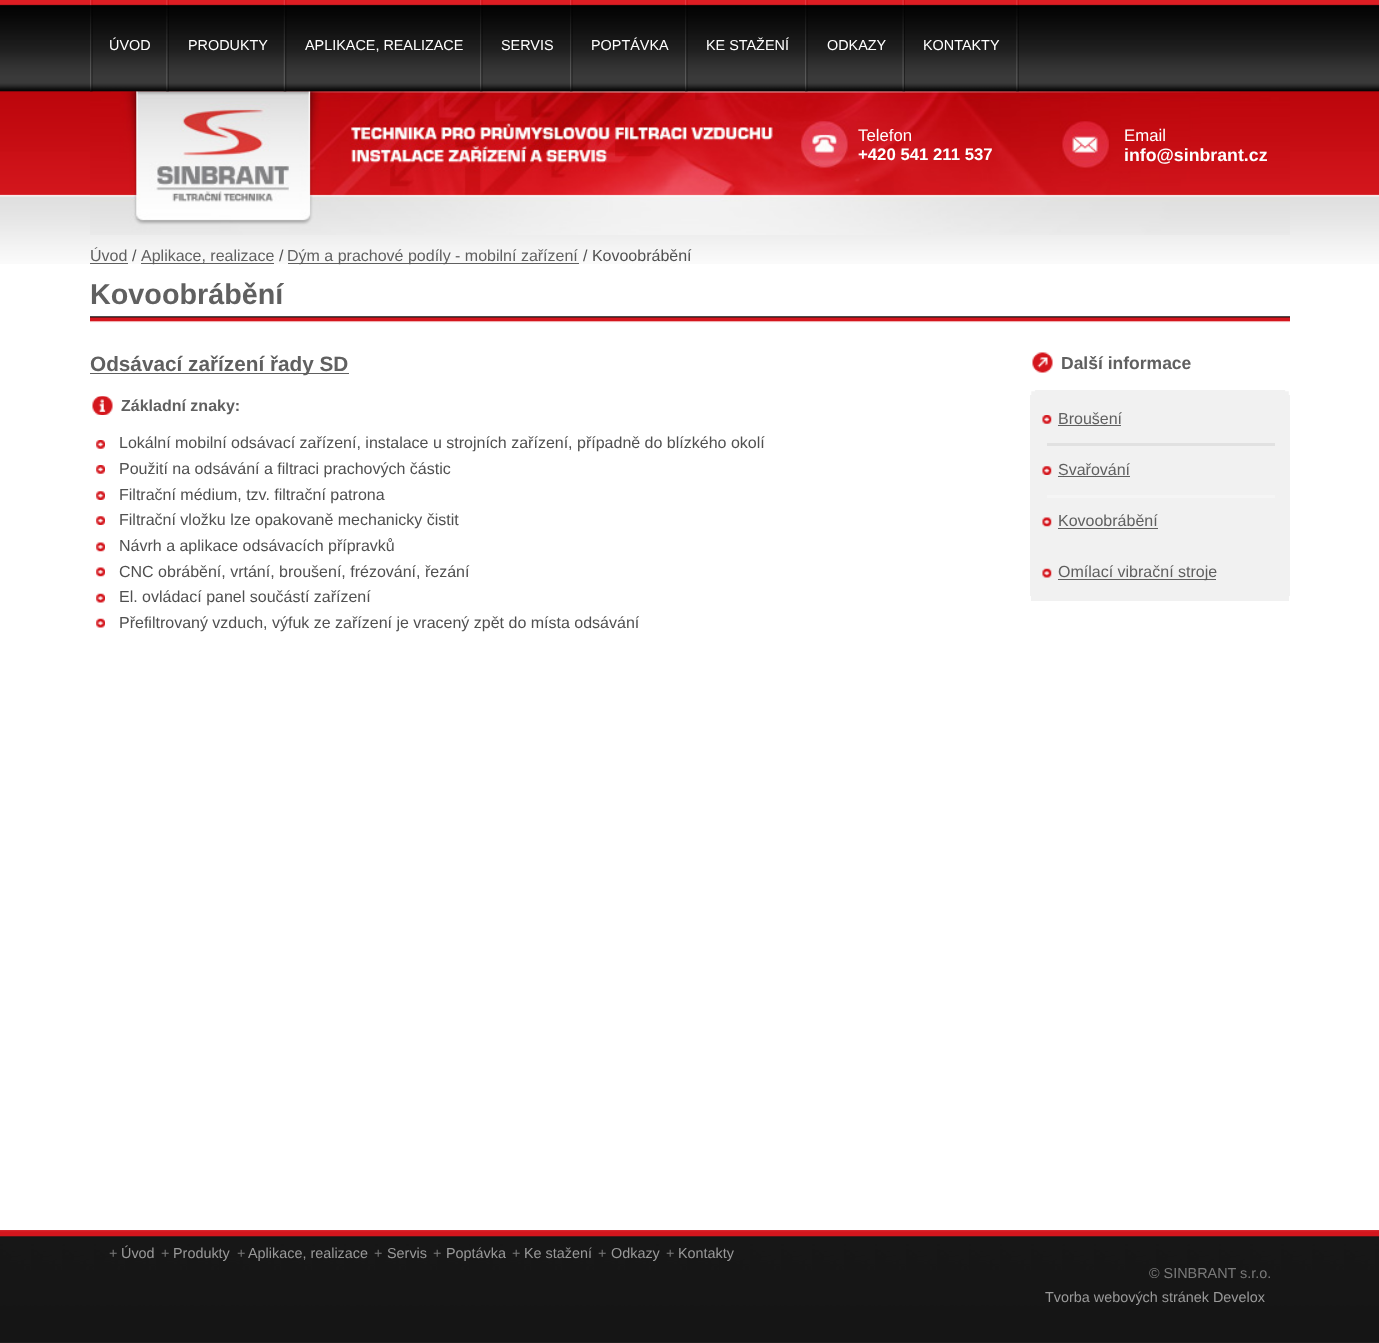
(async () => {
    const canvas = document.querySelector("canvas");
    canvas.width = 1379;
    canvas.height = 1343;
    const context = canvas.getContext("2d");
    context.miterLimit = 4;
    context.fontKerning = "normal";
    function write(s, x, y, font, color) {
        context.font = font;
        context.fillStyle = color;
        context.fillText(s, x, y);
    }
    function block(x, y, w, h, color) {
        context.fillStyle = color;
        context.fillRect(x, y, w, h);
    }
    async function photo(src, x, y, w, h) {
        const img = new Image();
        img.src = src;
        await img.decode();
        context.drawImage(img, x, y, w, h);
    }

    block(0, 0, 1379, 1343, "rgb(255, 255, 255)");
    await photo("media/1.png", 0, 0, 1379, 264);
    await photo("media/12.png", 90, 91, 1200, 144);
    await photo("media/2.png", 90, 0, 1200, 92);
    await photo("media/3.png", 90, 0, 3, 92);
    await photo("media/4.png", 166, 0, 3, 92);
    write("ÚVOD", 109, 50, "14.4px Liberation Sans", "rgb(255, 255, 255)");
    await photo("media/5.png", 283, 0, 4, 92);
    write("PRODUKTY", 188, 50, "14.4px Liberation Sans", "rgb(255, 255, 255)");
    await photo("media/6.png", 480, 0, 3, 92);
    write("APLIKACE, REALIZACE", 305, 50, "14.4px Liberation Sans", "rgb(255, 255, 255)");
    await photo("media/7.png", 570, 0, 3, 92);
    write("SERVIS", 501, 50, "14.4px Liberation Sans", "rgb(255, 255, 255)");
    await photo("media/8.png", 685, 0, 3, 92);
    write("POPTÁVKA", 591, 50, "14.4px Liberation Sans", "rgb(255, 255, 255)");
    await photo("media/9.png", 805, 0, 3, 92);
    write("KE STAŽENÍ", 706, 50, "14.4px Liberation Sans", "rgb(255, 255, 255)");
    await photo("media/10.png", 902, 0, 3, 92);
    write("ODKAZY", 827, 50, "14.4px Liberation Sans", "rgb(255, 255, 255)");
    await photo("media/11.png", 1016, 0, 3, 92);
    write("KONTAKTY", 923, 50, "14.4px Liberation Sans", "rgb(255, 255, 255)");
    write("Telefon", 858, 141, "16.75px Liberation Sans", "rgb(255, 255, 255)");
    write("+420 541 211 537", 858, 160, "bold 16.75px Liberation Sans", "rgb(255, 255, 255)");
    write("Email", 1124, 141, "16.75px Liberation Sans", "rgb(255, 255, 255)");
    write("info@sinbrant.cz", 1124, 161, "bold 17.75px Liberation Sans", "rgb(255, 255, 255)");
    write("Úvod", 90, 261, "16px Liberation Sans", "rgb(96, 96, 96)");
    block(90, 263, 38, 1, "rgb(96, 96, 96)");
    write("/", 132, 261, "16px Liberation Sans", "rgb(80, 80, 80)");
    block(141, 263, 133, 1, "rgb(96, 96, 96)");
    write("Aplikace, realizace", 141, 261, "16px Liberation Sans", "rgb(96, 96, 96)");
    write("/", 279, 261, "16px Liberation Sans", "rgb(80, 80, 80)");
    block(288, 263, 291, 1, "rgb(96, 96, 96)");
    write("Dým a prachové podíly - mobilní zařízení", 287, 261, "16px Liberation Sans", "rgb(96, 96, 96)");
    write("/ Kovoobrábění", 583, 261, "16px Liberation Sans", "rgb(80, 80, 80)");
    await photo("media/13.png", 90, 316, 1200, 7);
    write("Kovoobrábění", 90, 304, "bold 28.75px Liberation Sans", "rgb(96, 96, 96)");
    block(90, 373, 259, 1, "rgb(96, 96, 96)");
    write("Odsávací zařízení řady SD", 90, 371, "bold 20.75px Liberation Sans", "rgb(96, 96, 96)");
    await photo("media/14.png", 92, 396, 21, 19);
    write("Základní znaky:", 121, 411, "bold 16px Liberation Sans", "rgb(96, 96, 96)");
    await photo("media/15.png", 96, 440, 9, 9);
    write("Lokální mobilní odsávací zařízení, instalace u strojních zařízení, případně do blízkého okolí", 119, 448, "16px Liberation Sans", "rgb(80, 80, 80)");
    await photo("media/15.png", 96, 465, 9, 9);
    write("Použití na odsávání a filtraci prachových částic", 119, 474, "16px Liberation Sans", "rgb(80, 80, 80)");
    await photo("media/16.png", 96, 491, 9, 9);
    write("Filtrační médium, tzv. filtrační patrona", 119, 500, "16px Liberation Sans", "rgb(80, 80, 80)");
    await photo("media/16.png", 96, 516, 9, 9);
    write("Filtrační vložku lze opakovaně mechanicky čistit", 119, 525, "16px Liberation Sans", "rgb(80, 80, 80)");
    await photo("media/17.png", 96, 542, 9, 10);
    write("Návrh a aplikace odsávacích přípravků", 119, 551, "16px Liberation Sans", "rgb(80, 80, 80)");
    await photo("media/17.png", 96, 567, 9, 10);
    write("CNC obrábění, vrtání, broušení, frézování, řezání", 119, 577, "16px Liberation Sans", "rgb(80, 80, 80)");
    await photo("media/18.png", 96, 593, 9, 10);
    write("El. ovládací panel součástí zařízení", 119, 602, "16px Liberation Sans", "rgb(80, 80, 80)");
    await photo("media/18.png", 96, 618, 9, 10);
    write("Přefiltrovaný vzduch, výfuk ze zařízení je vracený zpět do místa odsávání", 119, 628, "16px Liberation Sans", "rgb(80, 80, 80)");
    await photo("media/19.png", 1032, 352, 21, 21);
    write("Další informace", 1061, 369, "bold 17.5px Liberation Sans", "rgb(96, 96, 96)");
    await photo("media/20.png", 1031, 390, 258, 5);
    block(1030, 395, 260, 201, "rgb(241, 241, 241)");
    await photo("media/21.png", 1042, 415, 10, 9);
    write("Broušení", 1058, 424, "16px Liberation Sans", "rgb(96, 96, 96)");
    block(1058, 425, 63, 1, "rgb(96, 96, 96)");
    block(1047, 443, 228, 3, "rgb(225, 225, 225)");
    await photo("media/22.png", 1042, 466, 10, 9);
    write("Svařování", 1058, 475, "16px Liberation Sans", "rgb(96, 96, 96)");
    block(1058, 476, 72, 1, "rgb(96, 96, 96)");
    block(1047, 495, 228, 3, "rgb(245, 245, 245)");
    await photo("media/23.png", 1042, 517, 10, 10);
    write("Kovoobrábění", 1058, 526, "16px Liberation Sans", "rgb(96, 96, 96)");
    block(1058, 528, 100, 1, "rgb(96, 96, 96)");
    await photo("media/24.png", 1042, 568, 10, 10);
    block(1058, 579, 158, 1, "rgb(96, 96, 96)");
    write("Omílací vibrační stroje", 1058, 577, "16px Liberation Sans", "rgb(96, 96, 96)");
    block(1031, 596, 258, 5, "rgb(241, 241, 241)");
    await photo("media/25.png", 0, 1230, 1379, 113);
    write("+", 109, 1258, "14.4px Liberation Sans", "rgb(121, 121, 121)");
    write("Úvod", 121, 1258, "14.4px Liberation Sans", "rgb(153, 153, 153)");
    write("+", 161, 1258, "14.4px Liberation Sans", "rgb(121, 121, 121)");
    write("Produkty", 173, 1258, "14.4px Liberation Sans", "rgb(153, 153, 153)");
    write("+", 237, 1258, "14.4px Liberation Sans", "rgb(121, 121, 121)");
    write("Aplikace, realizace", 248, 1258, "14.4px Liberation Sans", "rgb(153, 153, 153)");
    write("+", 374, 1258, "14.4px Liberation Sans", "rgb(121, 121, 121)");
    write("Servis", 387, 1258, "14.4px Liberation Sans", "rgb(153, 153, 153)");
    write("+", 433, 1258, "14.4px Liberation Sans", "rgb(121, 121, 121)");
    write("Poptávka", 446, 1258, "14.4px Liberation Sans", "rgb(153, 153, 153)");
    write("+", 512, 1258, "14.4px Liberation Sans", "rgb(121, 121, 121)");
    write("Ke stažení", 524, 1258, "14.4px Liberation Sans", "rgb(153, 153, 153)");
    write("+", 598, 1258, "14.4px Liberation Sans", "rgb(121, 121, 121)");
    write("Odkazy", 611, 1258, "14.4px Liberation Sans", "rgb(153, 153, 153)");
    write("+", 666, 1258, "14.4px Liberation Sans", "rgb(121, 121, 121)");
    write("Kontakty", 678, 1258, "14.4px Liberation Sans", "rgb(153, 153, 153)");
    write("© SINBRANT s.r.o.", 1149, 1278, "14.4px Liberation Sans", "rgb(121, 121, 121)");
    write("Tvorba webových stránek Develox", 1045, 1302, "14.4px Liberation Sans", "rgb(153, 153, 153)");
})();
